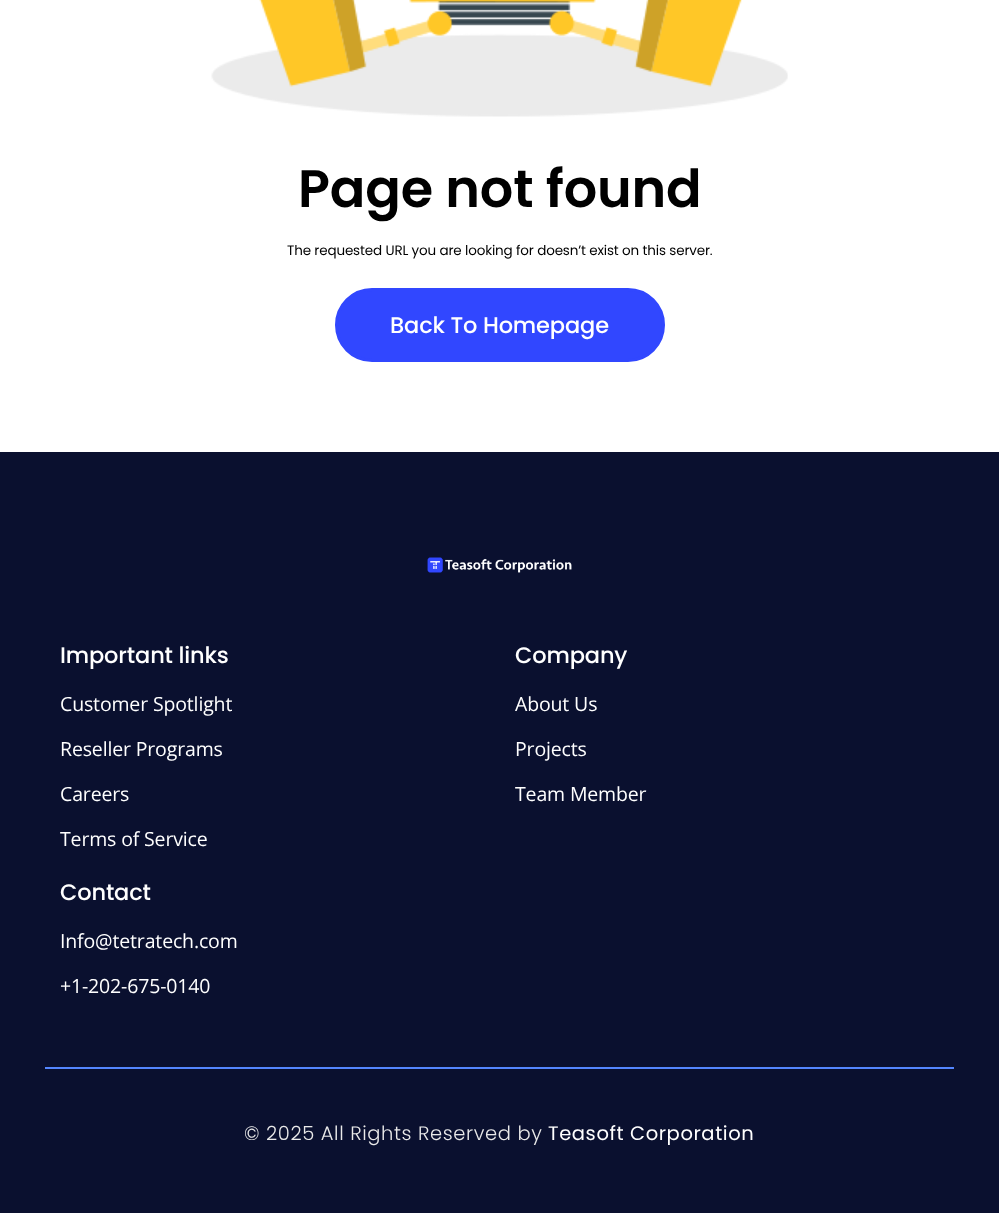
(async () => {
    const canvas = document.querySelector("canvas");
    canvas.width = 999;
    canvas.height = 1213;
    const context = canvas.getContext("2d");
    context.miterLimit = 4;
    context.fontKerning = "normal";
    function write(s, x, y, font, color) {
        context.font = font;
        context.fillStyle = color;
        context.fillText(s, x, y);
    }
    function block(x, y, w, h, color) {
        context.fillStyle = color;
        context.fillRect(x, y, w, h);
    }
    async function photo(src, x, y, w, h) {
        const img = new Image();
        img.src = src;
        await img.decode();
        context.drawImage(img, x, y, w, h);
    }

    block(0, 0, 999, 1213, "rgb(255, 255, 255)");
    await photo("media/1.png", 211, 0, 577, 117);
    context.letterSpacing = "-0.15px";
    write("Page not found", 298, 207, "600 52.5px Poppins", "rgb(0, 0, 0)");
    write("The requested URL you are looking for doesn’t exist on this server.", 287, 255, "13.5px Poppins", "rgb(0, 0, 0)");
    context.fillStyle = "rgb(49, 71, 255)";
    context.beginPath();
    context.roundRect(336.5, 289.5, 327, 71, 35.5);
    context.fill();
    context.strokeStyle = "rgb(49, 71, 255)";
    context.lineWidth = 3;
    context.stroke();
    write("Back To Homepage", 390, 333, "500 22.5px Poppins", "rgb(255, 255, 255)");
    block(0, 452, 999, 761, "rgb(10, 16, 47)");
    await photo("media/2.png", 427, 557, 145, 16);
    write("Important links", 60, 663, "500 22.5px Poppins", "rgb(255, 255, 255)");
    write("Customer Spotlight", 60, 711, "19.5px Open Sans", "rgb(255, 255, 255)");
    write("Reseller Programs", 60, 756, "19.5px Open Sans", "rgb(255, 255, 255)");
    write("Careers", 60, 801, "19.5px Open Sans", "rgb(255, 255, 255)");
    write("Terms of Service", 60, 846, "19.5px Open Sans", "rgb(255, 255, 255)");
    write("Company", 515, 663, "500 22.5px Poppins", "rgb(255, 255, 255)");
    write("About Us", 515, 711, "19.5px Open Sans", "rgb(255, 255, 255)");
    write("Projects", 515, 756, "19.5px Open Sans", "rgb(255, 255, 255)");
    write("Team Member", 515, 801, "19.5px Open Sans", "rgb(255, 255, 255)");
    write("Contact", 60, 900, "500 22.5px Poppins", "rgb(255, 255, 255)");
    write("Info@tetratech.com", 60, 948, "19.5px Open Sans", "rgb(255, 255, 255)");
    write("+1-202-675-0140", 60, 993, "19.5px Open Sans", "rgb(255, 255, 255)");
    block(45, 1067, 909, 2, "rgb(84, 134, 255)");
    context.letterSpacing = "0.6px";
    write("© 2025 All Rights Reserved by", 244, 1140, "300 19.5px Poppins", "rgb(234, 234, 234)");
    write("Teasoft Corporation", 548, 1140, "19.5px Poppins", "rgb(255, 255, 255)");
})();
